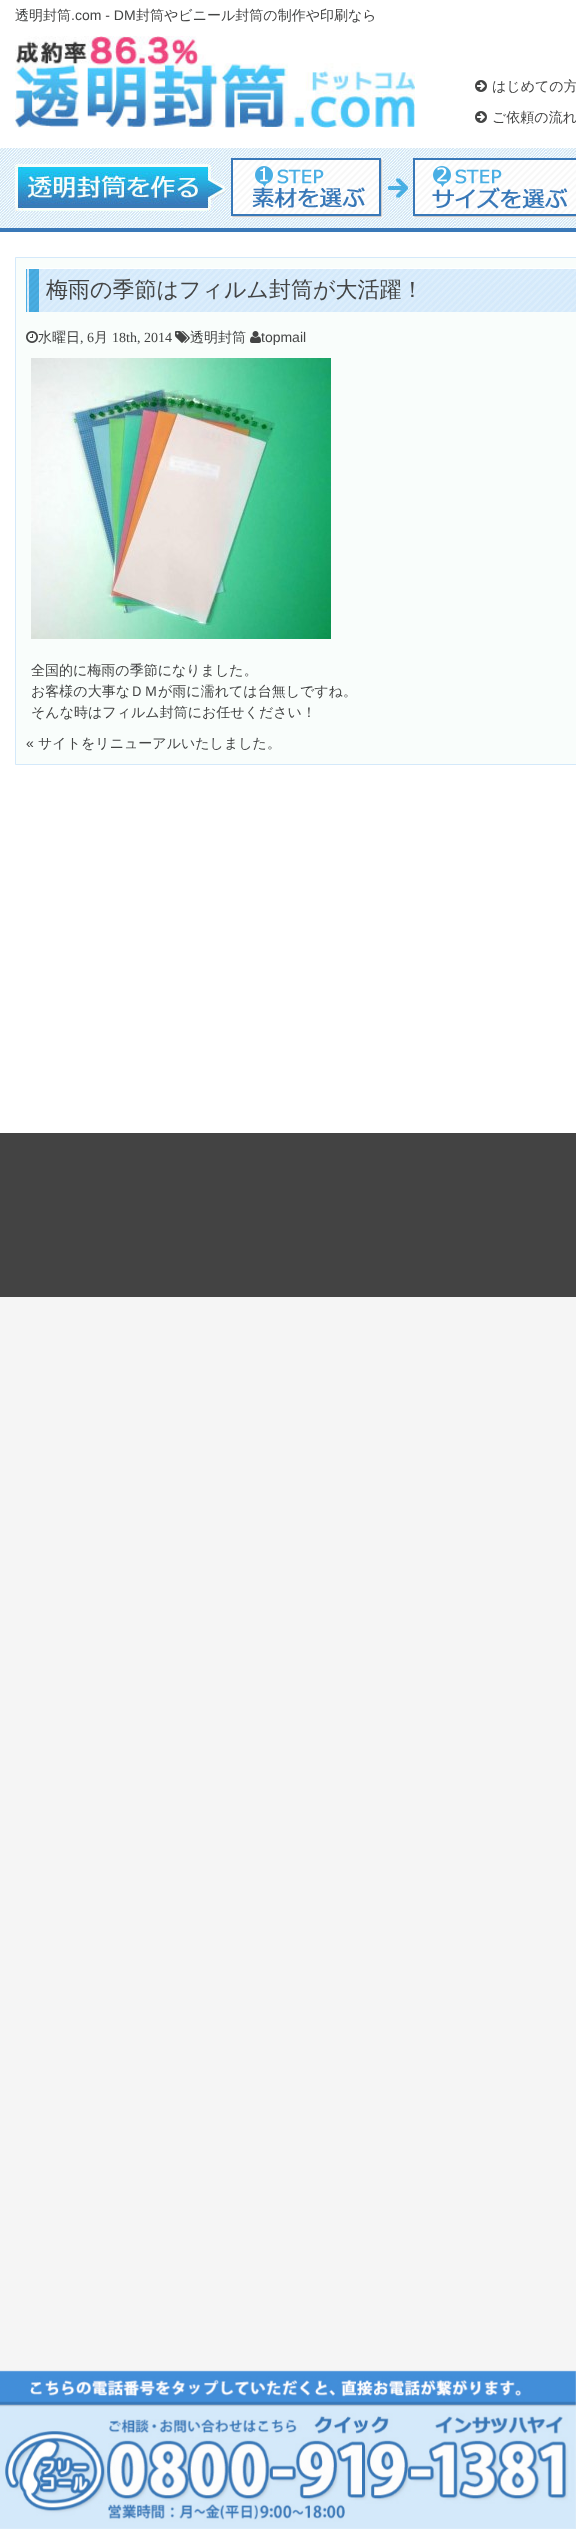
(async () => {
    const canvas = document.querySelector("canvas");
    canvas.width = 576;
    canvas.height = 2529;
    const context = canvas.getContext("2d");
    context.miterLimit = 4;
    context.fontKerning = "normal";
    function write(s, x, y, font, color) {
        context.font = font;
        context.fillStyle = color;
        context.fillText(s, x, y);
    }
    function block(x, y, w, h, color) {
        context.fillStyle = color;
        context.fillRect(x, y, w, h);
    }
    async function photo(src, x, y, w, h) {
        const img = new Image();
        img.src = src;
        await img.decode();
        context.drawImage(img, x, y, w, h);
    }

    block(0, 0, 576, 2529, "rgb(245, 245, 245)");
    block(0, 0, 576, 148, "rgb(255, 255, 255)");
    write("透明封筒", 15, 20, "500 14px WenQuanYi Zen Hei", "rgb(67, 68, 68)");
    write(".com - DM", 71, 20, "14px Liberation Sans", "rgb(67, 68, 68)");
    write("封筒やビニール封筒の制作や印刷なら", 136, 20, "500 14px WenQuanYi Zen Hei", "rgb(67, 68, 68)");
    await photo("media/1.png", 15, 36, 400, 92);
    await photo("media/2.png", 475, 80, 12, 12);
    write("はじめての方", 492, 91, "500 14px WenQuanYi Zen Hei", "rgb(67, 68, 68)");
    await photo("media/2.png", 475, 111, 12, 12);
    write("ご依頼の流れ", 492, 122, "500 14px WenQuanYi Zen Hei", "rgb(67, 68, 68)");
    await photo("media/3.png", 0, 148, 576, 80);
    block(0, 228, 576, 4, "rgb(57, 120, 184)");
    await photo("media/4.png", 15, 164, 211, 47);
    await photo("media/5.png", 231, 158, 152, 60);
    await photo("media/6.png", 388, 178, 20, 20);
    await photo("media/7.png", 413, 158, 163, 60);
    block(0, 232, 576, 901, "rgb(255, 255, 255)");
    context.fillStyle = "rgb(249, 253, 251)";
    context.beginPath();
    context.rect(15.5, 257.5, 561, 507);
    context.fill();
    context.strokeStyle = "rgb(212, 233, 250)";
    context.stroke();
    await photo("media/8.png", 26, 268, 550, 44);
    write("梅雨の季節はフィルム封筒が大活躍！", 46, 297, "500 22px WenQuanYi Zen Hei", "rgb(67, 68, 68)");
    await photo("media/9.png", 26, 331, 12, 12);
    write("水曜日", 38, 342, "500 14px WenQuanYi Zen Hei", "rgb(67, 68, 68)");
    write(", 6", 80, 342, "14px Liberation Serif", "rgb(67, 68, 68)");
    write("月", 94, 342, "500 14px WenQuanYi Zen Hei", "rgb(67, 68, 68)");
    write("18th, 2014", 112, 342, "14px Liberation Serif", "rgb(67, 68, 68)");
    await photo("media/10.png", 175, 331, 15, 12);
    write("透明封筒", 190, 342, "500 14px WenQuanYi Zen Hei", "rgb(67, 68, 68)");
    await photo("media/11.png", 250, 331, 11, 12);
    write("topmail", 261, 342, "14px Liberation Sans", "rgb(67, 68, 68)");
    await photo("media/12.png", 31, 358, 300, 281);
    write("全国的に梅雨の季節になりました。", 31, 675, "500 14px WenQuanYi Zen Hei", "rgb(67, 68, 68)");
    write("お客様の大事なＤＭが雨に濡れては台無しですね。", 31, 696, "500 14px WenQuanYi Zen Hei", "rgb(67, 68, 68)");
    write("そんな時はフィルム封筒にお任せください！", 31, 717, "500 14px WenQuanYi Zen Hei", "rgb(67, 68, 68)");
    write("«", 26, 748, "14px Liberation Sans", "rgb(67, 68, 68)");
    write("サイトをリニューアルいたしました。", 38, 748, "500 14px WenQuanYi Zen Hei", "rgb(67, 68, 68)");
    block(0, 1133, 576, 164, "rgb(67, 67, 67)");
    await photo("media/13.png", 0, 2370, 576, 159);
})();
